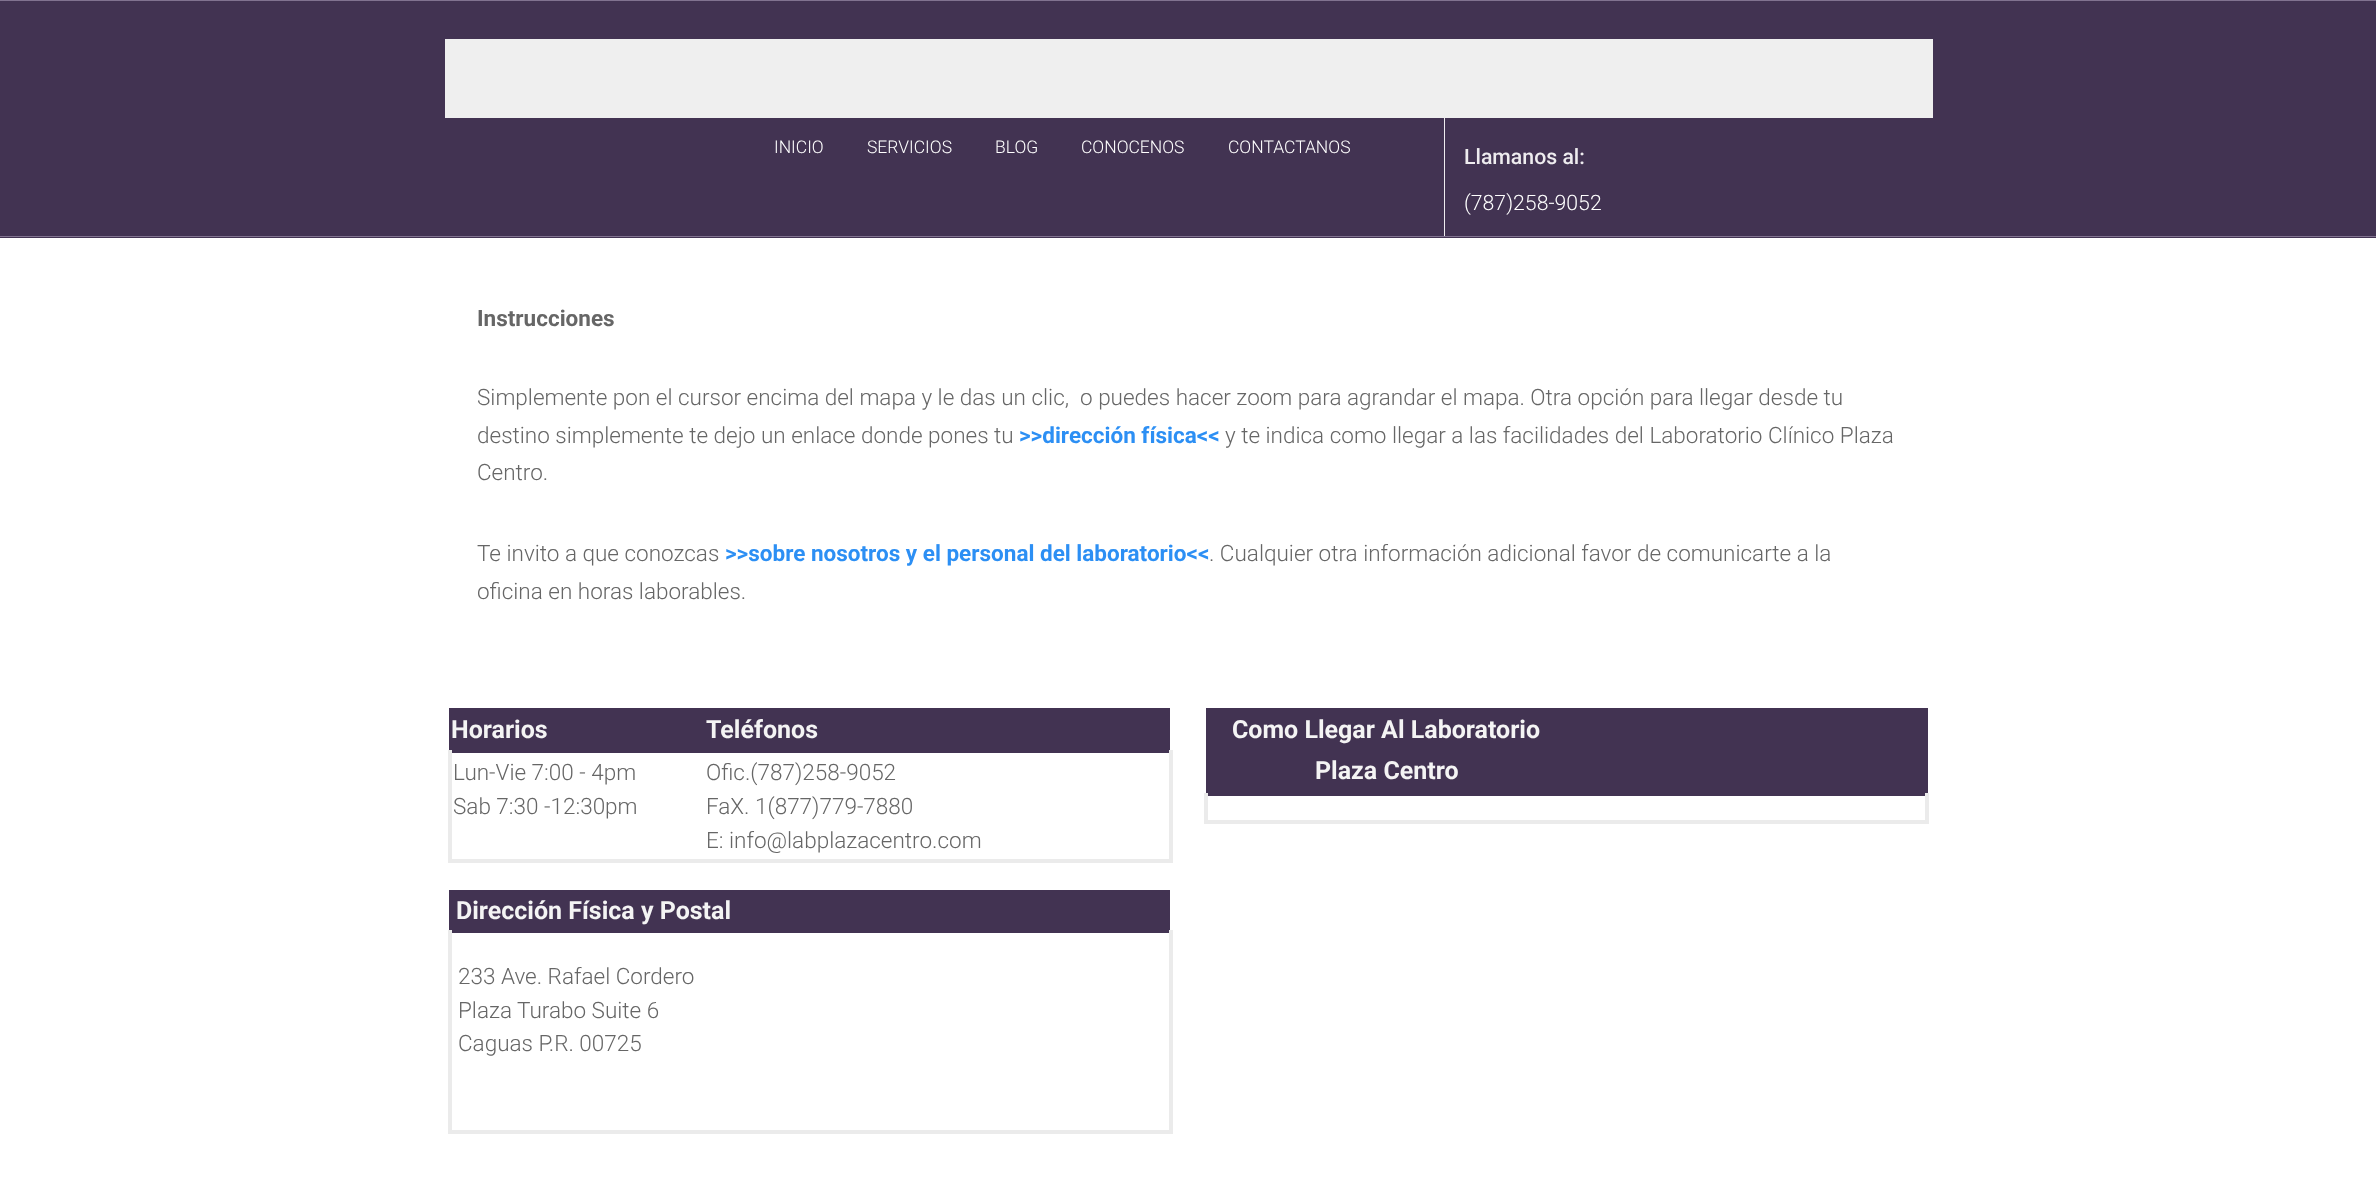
(async () => {
    const canvas = document.querySelector("canvas");
    canvas.width = 2376;
    canvas.height = 1178;
    const context = canvas.getContext("2d");
    context.miterLimit = 4;
    context.fontKerning = "normal";
    function write(s, x, y, font, color) {
        context.font = font;
        context.fillStyle = color;
        context.fillText(s, x, y);
    }
    function block(x, y, w, h, color) {
        context.fillStyle = color;
        context.fillRect(x, y, w, h);
    }

    block(0, 0, 2376, 1178, "rgb(255, 255, 255)");
    block(0, 1, 2376, 237, "rgb(66, 51, 82)");
    block(0, 0, 2376, 1, "rgb(129, 115, 144)");
    block(0, 236, 2376, 1, "rgb(129, 115, 144)");
    block(445, 39, 1488, 79, "rgb(239, 239, 239)");
    write("INICIO", 774, 153, "300 17.5px Roboto", "rgb(255, 255, 255)");
    write("SERVICIOS", 867, 153, "300 17.5px Roboto", "rgb(255, 255, 255)");
    write("BLOG", 995, 153, "300 17.5px Roboto", "rgb(255, 255, 255)");
    write("CONOCENOS", 1081, 153, "300 17.5px Roboto", "rgb(255, 255, 255)");
    write("CONTACTANOS", 1228, 153, "300 17.5px Roboto", "rgb(255, 255, 255)");
    block(1444, 118, 1, 118, "rgb(238, 236, 239)");
    write("Llamanos al:", 1464, 164, "500 21.25px Roboto", "rgb(238, 236, 239)");
    write("(787)258-9052", 1464, 210, "300 21.25px Roboto", "rgb(255, 255, 255)");
    write("Instrucciones", 477, 326, "bold 22.5px Roboto", "rgb(102, 102, 102)");
    write("Simplemente pon el cursor encima del mapa y le das un clic,  o puedes hacer zoom para agrandar el mapa. Otra opción para llegar desde tu", 477, 405, "300 22.5px Roboto", "rgb(102, 102, 102)");
    write("destino simplemente te dejo un enlace donde pones tu", 477, 443, "300 22.5px Roboto", "rgb(102, 102, 102)");
    write(">>dirección física<<", 1019, 443, "bold 22.5px Roboto", "rgb(44, 143, 244)");
    write("y te indica como llegar a las facilidades del Laboratorio Clínico Plaza", 1225, 443, "300 22.5px Roboto", "rgb(102, 102, 102)");
    write("Centro.", 477, 480, "300 22.5px Roboto", "rgb(102, 102, 102)");
    write("Te invito a que conozcas", 477, 561, "300 22.5px Roboto", "rgb(102, 102, 102)");
    write(">>sobre nosotros y el personal del laboratorio<<", 725, 561, "bold 22.5px Roboto", "rgb(44, 143, 244)");
    write(". Cualquier otra información adicional favor de comunicarte a la", 1209, 561, "300 22.5px Roboto", "rgb(102, 102, 102)");
    write("oficina en horas laborables.", 477, 599, "300 22.5px Roboto", "rgb(102, 102, 102)");
    block(449, 708, 721, 42, "rgb(66, 51, 82)");
    write("Horarios", 451, 738, "bold 25px Roboto", "rgb(244, 244, 244)");
    write("Teléfonos", 706, 738, "bold 25px Roboto", "rgb(244, 244, 244)");
    block(448, 750, 723, 3, "rgb(66, 51, 82)");
    block(1169, 750, 4, 113, "rgb(235, 235, 235)");
    block(448, 859, 725, 4, "rgb(235, 235, 235)");
    block(448, 750, 4, 113, "rgb(235, 235, 235)");
    write("Lun-Vie 7:00 - 4pm", 453, 780, "300 22.5px Roboto", "rgb(102, 102, 102)");
    write("Sab 7:30 -12:30pm", 453, 814, "300 22.5px Roboto", "rgb(102, 102, 102)");
    write("Ofic.(787)258-9052", 706, 780, "300 22.5px Roboto", "rgb(102, 102, 102)");
    write("FaX. 1(877)779-7880", 706, 814, "300 22.5px Roboto", "rgb(102, 102, 102)");
    write("E: info@labplazacentro.com", 706, 848, "300 22.5px Roboto", "rgb(102, 102, 102)");
    block(449, 890, 721, 40, "rgb(66, 51, 82)");
    write("Dirección Física y Postal", 456, 919, "bold 25px Roboto", "rgb(244, 244, 244)");
    block(448, 930, 723, 3, "rgb(66, 51, 82)");
    block(1169, 930, 4, 204, "rgb(235, 235, 235)");
    block(448, 1130, 725, 4, "rgb(235, 235, 235)");
    block(448, 930, 4, 204, "rgb(235, 235, 235)");
    write("233 Ave. Rafael Cordero", 458, 984, "300 22.5px Roboto", "rgb(102, 102, 102)");
    write("Plaza Turabo Suite 6", 458, 1018, "300 22.5px Roboto", "rgb(102, 102, 102)");
    write("Caguas P.R. 00725", 458, 1051, "300 22.5px Roboto", "rgb(102, 102, 102)");
    block(1206, 708, 722, 85, "rgb(66, 51, 82)");
    write("Como Llegar Al Laboratorio", 1232, 738, "bold 25px Roboto", "rgb(244, 244, 244)");
    write("Plaza Centro", 1315, 779, "bold 25px Roboto", "rgb(244, 244, 244)");
    block(1205, 793, 724, 3, "rgb(66, 51, 82)");
    block(1925, 793, 4, 31, "rgb(235, 235, 235)");
    block(1204, 820, 725, 4, "rgb(235, 235, 235)");
    block(1204, 793, 4, 31, "rgb(235, 235, 235)");
})();
